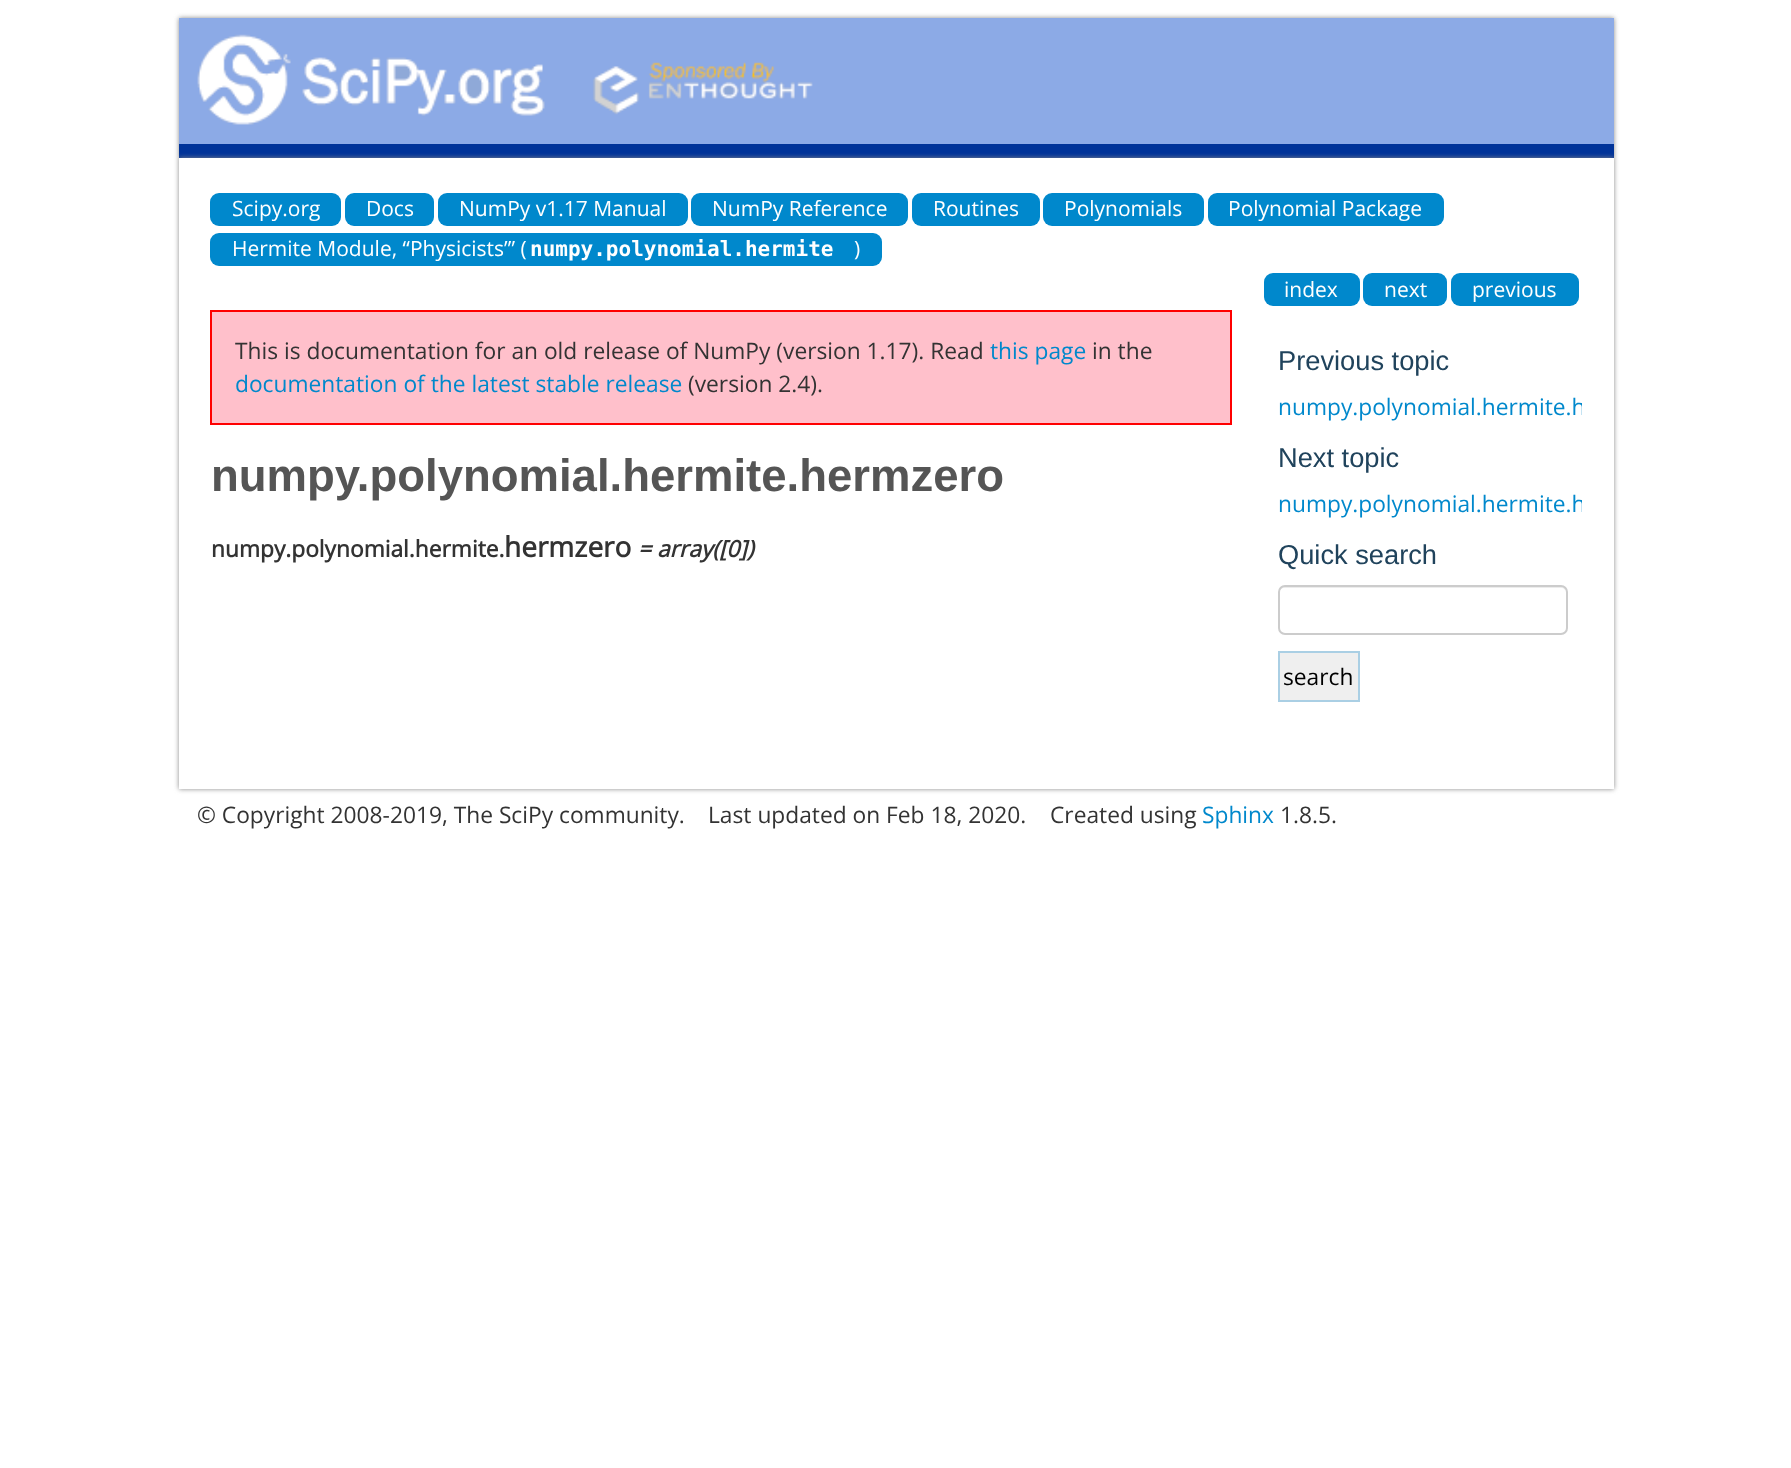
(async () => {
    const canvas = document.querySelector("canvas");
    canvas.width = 1791;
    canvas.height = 1468;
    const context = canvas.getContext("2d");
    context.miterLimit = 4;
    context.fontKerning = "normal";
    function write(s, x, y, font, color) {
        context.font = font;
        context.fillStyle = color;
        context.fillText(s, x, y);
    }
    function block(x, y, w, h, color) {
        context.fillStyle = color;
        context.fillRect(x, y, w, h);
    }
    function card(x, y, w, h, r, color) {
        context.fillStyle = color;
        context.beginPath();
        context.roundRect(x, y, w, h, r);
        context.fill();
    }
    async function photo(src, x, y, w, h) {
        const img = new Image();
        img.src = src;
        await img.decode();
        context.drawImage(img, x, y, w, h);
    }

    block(0, 0, 1791, 1468, "rgb(255, 255, 255)");
    context.fillStyle = "rgb(136, 136, 136)";
    context.filter = "blur(2.5px)";
    context.beginPath();
    context.rect(179, 18, 1435, 140);
    context.fill();
    context.filter = "none";
    block(179, 18, 1435, 126, "rgb(140, 170, 230)");
    block(179, 144, 1435, 14, "rgb(0, 51, 153)");
    await photo("media/1.png", 197, 34, 616, 91);
    context.fillStyle = "rgb(136, 136, 136)";
    context.filter = "blur(2.5px)";
    context.beginPath();
    context.rect(179, 158, 1435, 631);
    context.fill();
    context.filter = "none";
    block(179, 158, 1435, 631, "rgb(255, 255, 255)");
    card(210, 193, 131, 33, 9, "rgb(0, 136, 204)");
    write("Scipy.org", 232, 216, "21px Open Sans", "rgb(255, 255, 255)");
    card(345, 193, 89, 33, 9, "rgb(0, 136, 204)");
    write("Docs", 366, 216, "21px Open Sans", "rgb(255, 255, 255)");
    card(438, 193, 250, 33, 9, "rgb(0, 136, 204)");
    write("NumPy v1.17 Manual", 459, 216, "21px Open Sans", "rgb(255, 255, 255)");
    card(691, 193, 217, 33, 9, "rgb(0, 136, 204)");
    write("NumPy Reference", 712, 216, "21px Open Sans", "rgb(255, 255, 255)");
    card(912, 193, 128, 33, 9, "rgb(0, 136, 204)");
    write("Routines", 933, 216, "21px Open Sans", "rgb(255, 255, 255)");
    card(1043, 193, 161, 33, 9, "rgb(0, 136, 204)");
    write("Polynomials", 1064, 216, "21px Open Sans", "rgb(255, 255, 255)");
    card(1208, 193, 236, 33, 9, "rgb(0, 136, 204)");
    write("Polynomial Package", 1228, 216, "21px Open Sans", "rgb(255, 255, 255)");
    card(210, 233, 672, 33, 9, "rgb(0, 136, 204)");
    write("Hermite Module, “Physicists’” (", 232, 256, "21px Open Sans", "rgb(255, 255, 255)");
    write("numpy.polynomial.hermite", 530, 256, "bold 21px DejaVu Sans Mono", "rgb(255, 255, 255)");
    write(")", 854, 256, "21px Open Sans", "rgb(255, 255, 255)");
    card(1264, 273, 96, 33, 9, "rgb(0, 136, 204)");
    write("index", 1284, 297, "21px Open Sans", "rgb(255, 255, 255)");
    card(1363, 273, 84, 33, 9, "rgb(0, 136, 204)");
    write("next", 1384, 297, "21px Open Sans", "rgb(255, 255, 255)");
    card(1451, 273, 128, 33, 9, "rgb(0, 136, 204)");
    write("previous", 1472, 297, "21px Open Sans", "rgb(255, 255, 255)");
    context.fillStyle = "rgb(255, 192, 203)";
    context.beginPath();
    context.rect(211, 311, 1020, 113);
    context.fill();
    context.strokeStyle = "rgb(255, 0, 0)";
    context.lineWidth = 2;
    context.stroke();
    write("This is documentation for an old release of NumPy (version 1.17). Read", 235, 359, "22.75px Open Sans", "rgb(51, 51, 51)");
    write("this page", 990, 359, "22.75px Open Sans", "rgb(0, 136, 204)");
    write("in the", 1092, 359, "22.75px Open Sans", "rgb(51, 51, 51)");
    write("documentation of the latest stable release", 235, 392, "22.75px Open Sans", "rgb(0, 136, 204)");
    write("(version 2.4).", 688, 392, "22.75px Open Sans", "rgb(51, 51, 51)");
    write("numpy.polynomial.hermite.hermzero", 211, 491, "bold 45.5px Liberation Sans", "rgb(85, 85, 85)");
    write("numpy.polynomial.hermite.", 211, 557, "bold 22.75px Open Sans", "rgb(51, 51, 51)");
    write("hermzero", 504, 557, "bold 28px Open Sans", "rgb(51, 51, 51)");
    write("= array([0])", 638, 557, "italic bold 22.75px Open Sans", "rgb(51, 51, 51)");
    write("Previous topic", 1278, 370, "27.25px Liberation Sans", "rgb(32, 67, 92)");
    context.save();
    context.beginPath();
    context.rect(1260, 310, 322, 448);
    context.clip();
    write("numpy.polynomial.hermite.h", 1278, 415, "22.75px Open Sans", "rgb(0, 136, 204)");
    context.restore();
    write("Next topic", 1278, 467, "27.25px Liberation Sans", "rgb(32, 67, 92)");
    context.save();
    context.beginPath();
    context.rect(1260, 310, 322, 448);
    context.clip();
    write("numpy.polynomial.hermite.h", 1278, 512, "22.75px Open Sans", "rgb(0, 136, 204)");
    context.restore();
    write("Quick search", 1278, 564, "27.25px Liberation Sans", "rgb(32, 67, 92)");
    context.fillStyle = "rgb(236, 236, 236)";
    context.beginPath();
    context.moveTo(1284, 588);
    context.lineTo(1561, 588);
    context.bezierCurveTo(1564, 588, 1566, 590, 1566, 593);
    context.bezierCurveTo(1566, 590, 1565, 586, 1561, 586);
    context.lineTo(1283, 586);
    context.bezierCurveTo(1279, 587, 1279, 590, 1279, 593);
    context.bezierCurveTo(1279, 590, 1282, 588, 1284, 588);
    context.closePath();
    context.fill();
    context.beginPath();
    context.roundRect(1279, 586, 288, 48, 6);
    context.strokeStyle = "rgb(204, 204, 204)";
    context.stroke();
    context.fillStyle = "rgb(239, 239, 239)";
    context.beginPath();
    context.rect(1279, 652, 80, 49);
    context.fill();
    context.strokeStyle = "rgb(170, 207, 228)";
    context.stroke();
    write("search", 1283, 685, "22.75px Open Sans", "rgb(0, 0, 0)");
    write("© Copyright 2008-2019, The SciPy community.", 197, 823, "22.75px Open Sans", "rgb(51, 51, 51)");
    write("Last updated on Feb 18, 2020.", 708, 823, "22.75px Open Sans", "rgb(51, 51, 51)");
    write("Created using", 1050, 823, "22.75px Open Sans", "rgb(51, 51, 51)");
    write("Sphinx", 1202, 823, "22.75px Open Sans", "rgb(0, 136, 204)");
    write("1.8.5.", 1280, 823, "22.75px Open Sans", "rgb(51, 51, 51)");
})();
